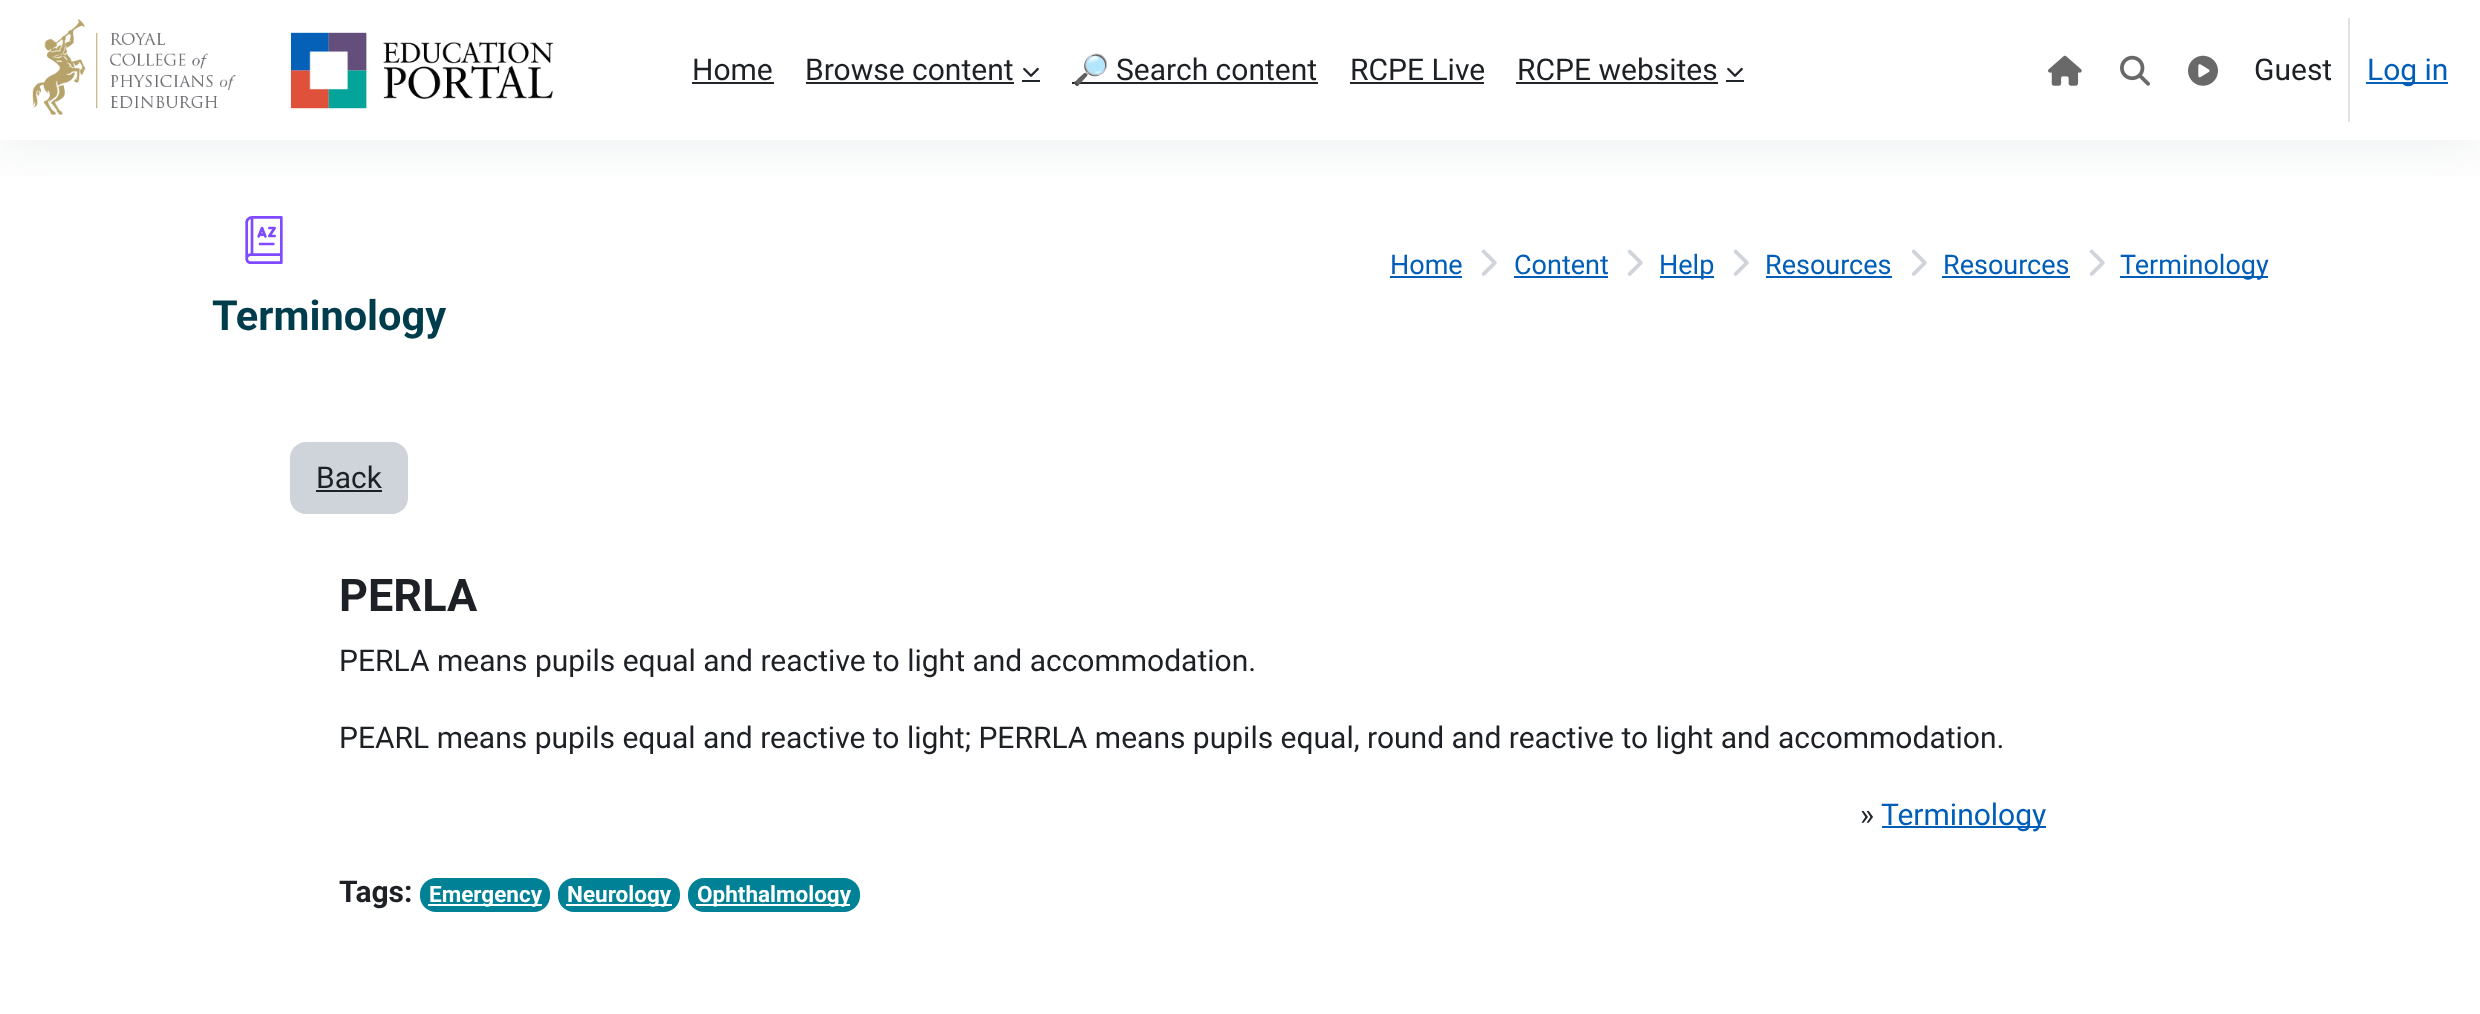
(async () => {
    const canvas = document.querySelector("canvas");
    canvas.width = 2480;
    canvas.height = 1014;
    const context = canvas.getContext("2d");
    context.miterLimit = 4;
    context.fontKerning = "normal";
    function write(s, x, y, font, color) {
        context.font = font;
        context.fillStyle = color;
        context.fillText(s, x, y);
    }
    function block(x, y, w, h, color) {
        context.fillStyle = color;
        context.fillRect(x, y, w, h);
    }
    function card(x, y, w, h, r, color) {
        context.fillStyle = color;
        context.beginPath();
        context.roundRect(x, y, w, h, r);
        context.fill();
    }
    async function photo(src, x, y, w, h) {
        const img = new Image();
        img.src = src;
        await img.decode();
        context.drawImage(img, x, y, w, h);
    }

    block(0, 0, 2480, 1014, "rgb(255, 255, 255)");
    await photo("media/7.png", 245, 216, 38, 48);
    context.save();
    context.beginPath();
    context.rect(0, 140, 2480, 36);
    context.clip();
    context.fillStyle = "rgba(142, 154, 166, 0.13)";
    context.filter = "blur(24px)";
    context.beginPath();
    context.rect(0, 12, 2480, 140);
    context.fill();
    context.filter = "none";
    context.restore();
    await photo("media/1.png", 32, 19, 522, 96);
    write("Home", 692, 80, "30px Roboto", "rgb(29, 33, 37)");
    block(692, 82, 82, 2, "rgb(34, 37, 41)");
    write("Browse content", 805, 80, "30px Roboto", "rgb(29, 33, 37)");
    block(806, 82, 208, 2, "rgb(34, 37, 41)");
    block(1022, 80, 18, 2, "rgb(34, 37, 41)");
    await photo("media/2.png", 1023, 67, 16, 10);
    block(1072, 82, 246, 2, "rgb(34, 37, 41)");
    write("🔎", 1072, 80, "30px Noto Color Emoji", "rgb(29, 33, 37)");
    write("Search content", 1116, 80, "30px Roboto", "rgb(29, 33, 37)");
    write("RCPE Live", 1350, 80, "30px Roboto", "rgb(29, 33, 37)");
    block(1350, 82, 134, 2, "rgb(34, 37, 41)");
    write("RCPE websites", 1517, 80, "30px Roboto", "rgb(29, 33, 37)");
    block(1516, 82, 202, 2, "rgb(34, 37, 41)");
    block(1726, 80, 18, 2, "rgb(34, 37, 41)");
    await photo("media/2.png", 1727, 67, 16, 10);
    await photo("media/3.png", 2048, 55, 34, 31);
    await photo("media/4.png", 2120, 55, 30, 31);
    await photo("media/5.png", 2188, 55, 30, 31);
    write("Guest", 2254, 80, "30px Roboto", "rgb(29, 33, 37)");
    block(2348, 18, 2, 104, "rgb(223, 227, 231)");
    block(2366, 82, 82, 2, "rgb(5, 97, 185)");
    write("Log in", 2367, 80, "30px Roboto", "rgb(0, 94, 184)");
    write("Home", 1390, 274, "27px Roboto", "rgb(0, 94, 184)");
    block(1390, 276, 72, 2, "rgb(0, 94, 184)");
    await photo("media/6.png", 1481, 249, 16, 27);
    write("Content", 1514, 274, "27px Roboto", "rgb(0, 94, 184)");
    block(1514, 276, 94, 2, "rgb(0, 94, 184)");
    await photo("media/6.png", 1627, 249, 16, 27);
    block(1660, 276, 54, 2, "rgb(0, 94, 184)");
    write("Help", 1659, 274, "27px Roboto", "rgb(0, 94, 184)");
    await photo("media/6.png", 1733, 249, 16, 27);
    write("Resources", 1765, 274, "27px Roboto", "rgb(0, 94, 184)");
    block(1766, 276, 126, 2, "rgb(0, 94, 184)");
    await photo("media/6.png", 1911, 249, 16, 27);
    write("Resources", 1943, 274, "27px Roboto", "rgb(0, 94, 184)");
    block(1942, 276, 128, 2, "rgb(0, 94, 184)");
    await photo("media/6.png", 2089, 249, 16, 27);
    block(2120, 276, 148, 2, "rgb(0, 94, 184)");
    write("Terminology", 2120, 274, "27px Roboto", "rgb(0, 94, 184)");
    write("Terminology", 212, 330, "bold 41.5px Roboto", "rgb(0, 61, 76)");
    context.fillStyle = "rgb(206, 212, 218)";
    context.beginPath();
    context.roundRect(291, 443, 116, 70, 15);
    context.fill();
    context.strokeStyle = "rgb(206, 212, 218)";
    context.lineWidth = 2;
    context.stroke();
    write("Back", 316, 488, "30px Roboto", "rgb(29, 33, 37)");
    block(316, 490, 66, 2, "rgb(29, 33, 37)");
    write("PERLA", 339, 611, "bold 45px Roboto", "rgb(29, 33, 37)");
    write("PERLA means pupils equal and reactive to light and accommodation.", 339, 671, "30px Roboto", "rgb(29, 33, 37)");
    write("PEARL means pupils equal and reactive to light; PERRLA means pupils equal, round and reactive to light and accommodation.", 339, 748, "30px Roboto", "rgb(29, 33, 37)");
    write("»", 1860, 825, "30px Roboto", "rgb(29, 33, 37)");
    block(1882, 826, 164, 2, "rgb(0, 94, 184)");
    write("Terminology", 1881, 825, "30px Roboto", "rgb(0, 94, 184)");
    write("Tags:", 339, 902, "bold 30px Roboto", "rgb(29, 33, 37)");
    card(420, 878, 130, 34, 16, "rgb(0, 129, 150)");
    block(428, 904, 114, 2, "rgb(255, 255, 255)");
    write("Emergency", 429, 902, "bold 22.5px Roboto", "rgb(255, 255, 255)");
    card(558, 878, 122, 34, 16, "rgb(0, 129, 150)");
    block(566, 904, 106, 2, "rgb(255, 255, 255)");
    write("Neurology", 567, 902, "bold 22.5px Roboto", "rgb(255, 255, 255)");
    card(688, 878, 172, 34, 16, "rgb(0, 129, 150)");
    block(696, 904, 154, 2, "rgb(255, 255, 255)");
    write("Ophthalmology", 697, 902, "bold 22.5px Roboto", "rgb(255, 255, 255)");
})();
